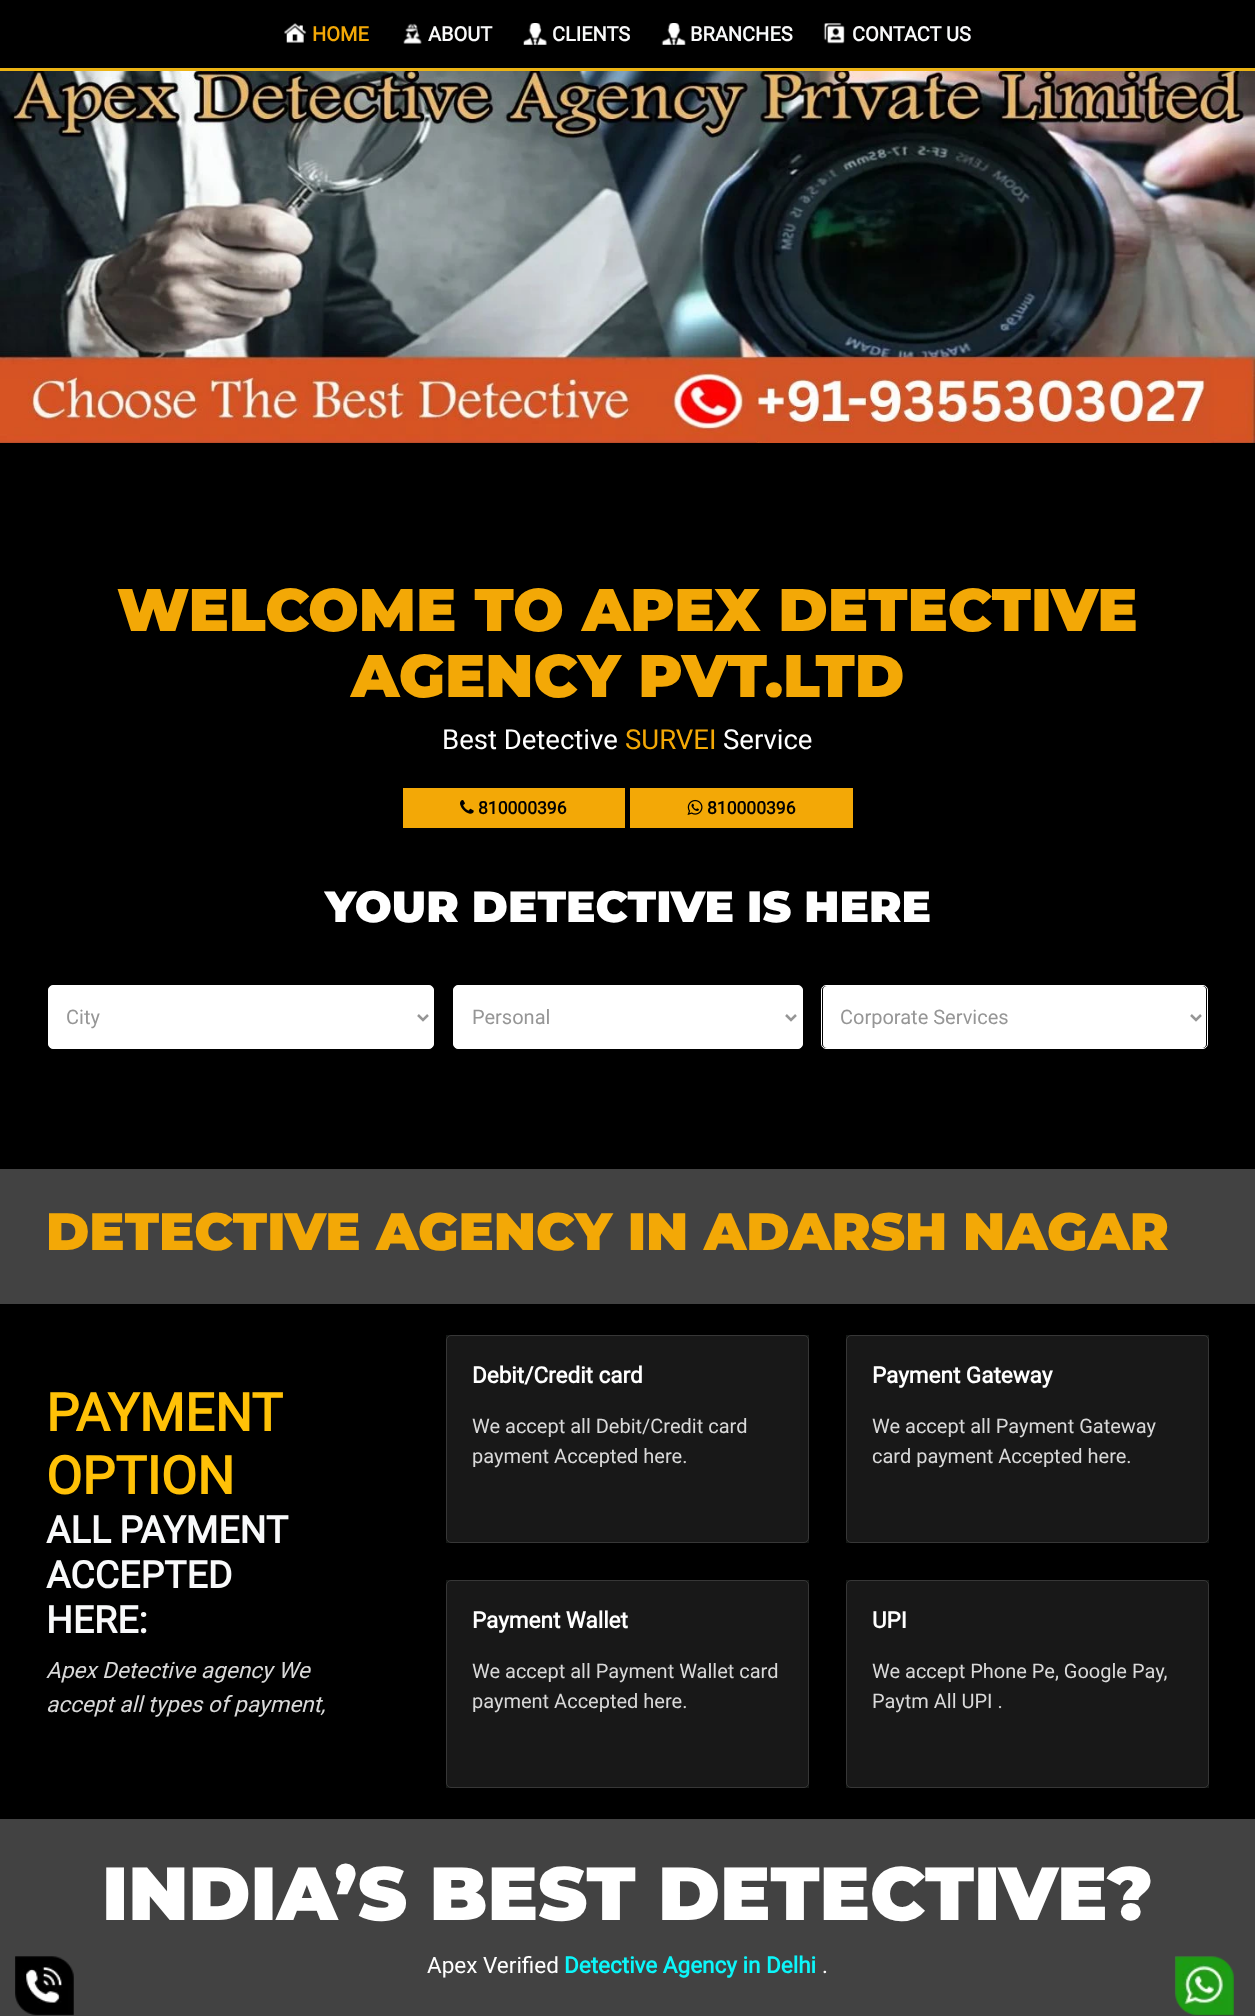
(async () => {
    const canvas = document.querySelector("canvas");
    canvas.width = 1255;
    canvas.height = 2016;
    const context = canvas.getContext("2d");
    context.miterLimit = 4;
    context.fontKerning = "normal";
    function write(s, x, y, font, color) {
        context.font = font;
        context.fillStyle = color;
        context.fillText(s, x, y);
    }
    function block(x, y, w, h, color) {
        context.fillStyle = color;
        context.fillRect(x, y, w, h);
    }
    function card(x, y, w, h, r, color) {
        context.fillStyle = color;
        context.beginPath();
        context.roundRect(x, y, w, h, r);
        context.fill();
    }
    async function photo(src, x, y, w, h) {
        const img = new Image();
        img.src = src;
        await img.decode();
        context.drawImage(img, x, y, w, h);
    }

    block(0, 0, 1255, 2016, "rgb(0, 0, 0)");
    block(0, 68, 1255, 3, "rgb(237, 180, 19)");
    await photo("media/1.png", 284, 23, 23, 20);
    write("HOME", 312, 41, "bold 20px Roboto", "rgb(243, 168, 6)");
    await photo("media/2.png", 403, 23, 19, 21);
    write("ABOUT", 428, 41, "bold 20px Roboto", "rgb(248, 249, 250)");
    await photo("media/3.png", 523, 23, 24, 22);
    write("CLIENTS", 552, 41, "bold 20px Roboto", "rgb(248, 249, 250)");
    await photo("media/4.png", 661, 23, 25, 22);
    write("BRANCHES", 690, 41, "bold 20px Roboto", "rgb(248, 249, 250)");
    await photo("media/5.png", 823, 23, 22, 21);
    write("CONTACT US", 852, 41, "bold 20px Roboto", "rgb(248, 249, 250)");
    await photo("media/6.png", 0, 71, 1255, 372);
    write("WELCOME TO APEX DETECTIVE", 117, 631, "900 60px Montserrat", "rgb(243, 168, 6)");
    write("AGENCY PVT.LTD", 351, 697, "900 60px Montserrat", "rgb(243, 168, 6)");
    write("Best Detective", 442, 749, "27.5px Roboto", "rgb(255, 255, 255)");
    write("SURVEI", 625, 749, "27.5px Roboto", "rgb(243, 168, 6)");
    write("Service", 723, 749, "27.5px Roboto", "rgb(255, 255, 255)");
    block(403, 788, 222, 40, "rgb(243, 168, 6)");
    await photo("media/7.png", 460, 800, 14, 14);
    write("810000396", 478, 814, "bold 17.5px Roboto", "rgb(0, 0, 0)");
    block(630, 788, 223, 40, "rgb(243, 168, 6)");
    await photo("media/8.png", 687, 799, 16, 16);
    write("810000396", 707, 814, "bold 17.5px Roboto", "rgb(0, 0, 0)");
    write("YOUR DETECTIVE IS HERE", 325, 922, "900 43.75px Montserrat", "rgb(255, 255, 255)");
    context.beginPath();
    context.roundRect(48.5, 985.5, 385, 63, 4.5);
    context.fill();
    context.strokeStyle = "rgb(255, 255, 255)";
    context.stroke();
    context.beginPath();
    context.moveTo(418, 1015);
    context.lineTo(423, 1020);
    context.lineTo(428, 1015);
    context.strokeStyle = "rgb(150, 150, 150)";
    context.lineWidth = 2.5;
    context.stroke();
    write("City", 66, 1024, "20px Roboto", "rgb(150, 150, 150)");
    context.fillStyle = "rgb(255, 255, 255)";
    context.beginPath();
    context.roundRect(453.5, 985.5, 349, 63, 4.5);
    context.fill();
    context.strokeStyle = "rgb(255, 255, 255)";
    context.lineWidth = 1;
    context.stroke();
    context.beginPath();
    context.moveTo(786, 1015);
    context.lineTo(791, 1020);
    context.lineTo(796, 1015);
    context.strokeStyle = "rgb(150, 150, 150)";
    context.lineWidth = 2.5;
    context.stroke();
    write("Personal", 472, 1024, "20px Roboto", "rgb(150, 150, 150)");
    card(823, 986, 383, 62, 4, "rgb(255, 255, 255)");
    context.beginPath();
    context.roundRect(821.5, 985.5, 386, 63, 4.5);
    context.strokeStyle = "rgb(255, 255, 255)";
    context.lineWidth = 1;
    context.stroke();
    context.beginPath();
    context.moveTo(1191, 1015);
    context.lineTo(1196, 1020);
    context.lineTo(1201, 1015);
    context.strokeStyle = "rgb(150, 150, 150)";
    context.lineWidth = 2.5;
    context.stroke();
    write("Corporate Services", 840, 1024, "20px Roboto", "rgb(150, 150, 150)");
    block(0, 1169, 1255, 135, "rgb(66, 66, 66)");
    write("DETECTIVE AGENCY IN ADARSH NAGAR", 46, 1250, "900 52.5px Montserrat", "rgb(243, 168, 6)");
    write("PAYMENT", 46, 1431, "bold 52.5px Roboto", "rgb(255, 193, 7)");
    write("OPTION", 46, 1494, "bold 52.5px Roboto", "rgb(255, 193, 7)");
    context.wordSpacing = "-1px";
    write("ALL PAYMENT", 46, 1543, "bold 37.5px Roboto", "rgb(248, 249, 250)");
    context.wordSpacing = "0px";
    write("ACCEPTED", 46, 1588, "bold 37.5px Roboto", "rgb(248, 249, 250)");
    write("HERE:", 46, 1633, "bold 37.5px Roboto", "rgb(248, 249, 250)");
    write("Apex Detective agency We", 46, 1678, "italic 22.5px Roboto", "rgb(217, 217, 217)");
    write("accept all types of payment,", 46, 1712, "italic 22.5px Roboto", "rgb(217, 217, 217)");
    block(446, 1335, 363, 208, "rgb(20, 23, 21)");
    context.fillStyle = "rgb(24, 24, 24)";
    context.beginPath();
    context.roundRect(446.5, 1335.5, 362, 207, 4.5);
    context.fill();
    context.strokeStyle = "rgb(55, 55, 55)";
    context.lineWidth = 1;
    context.stroke();
    write("Debit/Credit card", 472, 1383, "bold 22.5px Roboto", "rgb(255, 255, 255)");
    write("We accept all Debit/Credit card", 472, 1433, "20px Roboto", "rgb(217, 217, 217)");
    write("payment Accepted here.", 472, 1463, "20px Roboto", "rgb(217, 217, 217)");
    block(846, 1335, 363, 208, "rgb(20, 23, 21)");
    context.fillStyle = "rgb(24, 24, 24)";
    context.beginPath();
    context.roundRect(846.5, 1335.5, 362, 207, 4.5);
    context.fill();
    context.stroke();
    write("Payment Gateway", 872, 1383, "bold 22.5px Roboto", "rgb(255, 255, 255)");
    write("We accept all Payment Gateway", 872, 1433, "20px Roboto", "rgb(217, 217, 217)");
    write("card payment Accepted here.", 872, 1463, "20px Roboto", "rgb(217, 217, 217)");
    block(446, 1580, 363, 208, "rgb(20, 23, 21)");
    context.fillStyle = "rgb(24, 24, 24)";
    context.beginPath();
    context.roundRect(446.5, 1580.5, 362, 207, 4.5);
    context.fill();
    context.stroke();
    write("Payment Wallet", 472, 1628, "bold 22.5px Roboto", "rgb(255, 255, 255)");
    write("We accept all Payment Wallet card", 472, 1678, "20px Roboto", "rgb(217, 217, 217)");
    write("payment Accepted here.", 472, 1708, "20px Roboto", "rgb(217, 217, 217)");
    block(846, 1580, 363, 208, "rgb(20, 23, 21)");
    context.fillStyle = "rgb(24, 24, 24)";
    context.beginPath();
    context.roundRect(846.5, 1580.5, 362, 207, 4.5);
    context.fill();
    context.stroke();
    write("UPI", 872, 1628, "bold 22.5px Roboto", "rgb(255, 255, 255)");
    write("We accept Phone Pe, Google Pay,", 872, 1678, "20px Roboto", "rgb(217, 217, 217)");
    write("Paytm All UPI .", 872, 1708, "20px Roboto", "rgb(217, 217, 217)");
    block(0, 1819, 1255, 197, "rgb(66, 66, 66)");
    write("INDIA’S BEST DETECTIVE?", 102, 1920, "900 75px Montserrat", "rgb(255, 255, 255)");
    write("Apex Verified", 427, 1973, "22.5px Roboto", "rgb(255, 255, 255)");
    write("Detective Agency in Delhi", 564, 1973, "bold 22.5px Roboto", "rgb(12, 246, 250)");
    write(".", 822, 1973, "22.5px Roboto", "rgb(255, 255, 255)");
    await photo("media/9.png", 15, 1956, 59, 60);
    await photo("media/10.png", 1174, 1956, 60, 60);
})();
